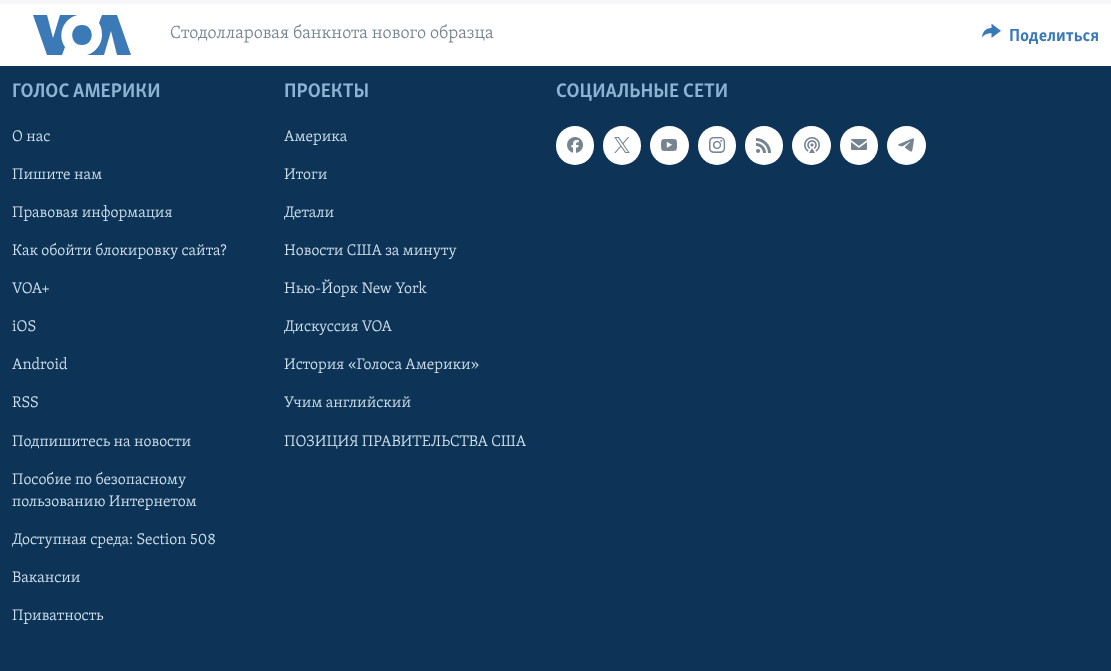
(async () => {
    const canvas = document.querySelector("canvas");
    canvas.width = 1111;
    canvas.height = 671;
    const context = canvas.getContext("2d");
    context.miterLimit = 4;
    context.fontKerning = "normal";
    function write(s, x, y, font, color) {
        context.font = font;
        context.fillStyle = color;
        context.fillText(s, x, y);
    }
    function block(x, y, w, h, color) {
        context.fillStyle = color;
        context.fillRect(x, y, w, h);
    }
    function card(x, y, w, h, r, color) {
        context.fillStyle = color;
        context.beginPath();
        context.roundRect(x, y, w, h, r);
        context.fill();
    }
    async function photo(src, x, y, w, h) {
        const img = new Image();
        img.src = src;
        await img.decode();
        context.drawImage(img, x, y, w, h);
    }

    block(0, 0, 1111, 671, "rgb(13, 52, 86)");
    block(0, 4, 1111, 62, "rgb(255, 255, 255)");
    block(0, 0, 1111, 4, "rgb(246, 247, 248)");
    context.fillStyle = "rgb(59, 121, 183)";
    context.beginPath();
    context.moveTo(65, 47);
    context.lineTo(62, 55);
    context.lineTo(47, 55);
    context.lineTo(33, 15);
    context.lineTo(47, 15);
    context.lineTo(53, 38);
    context.lineTo(60, 15);
    context.lineTo(77, 15);
    context.bezierCurveTo(63, 19, 57, 35, 65, 47);
    context.closePath();
    context.moveTo(82, 25);
    context.bezierCurveTo(69, 25, 69, 45, 82, 45);
    context.bezierCurveTo(95, 45, 95, 25, 82, 25);
    context.closePath();
    context.moveTo(102, 35);
    context.bezierCurveTo(102, 44, 96, 52, 87, 55);
    context.lineTo(104, 55);
    context.lineTo(111, 31);
    context.lineTo(117, 55);
    context.lineTo(131, 55);
    context.lineTo(117, 15);
    context.lineTo(102, 15);
    context.lineTo(99, 23);
    context.bezierCurveTo(101, 26, 102, 30, 102, 35);
    context.closePath();
    context.fill();
    write("Стодолларовая банкнота нового образца", 170, 38, "300 18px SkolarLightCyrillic", "rgb(118, 132, 146)");
    await photo("media/1.png", 982, 23, 19, 15);
    write("Поделиться", 1009, 41, "bold 18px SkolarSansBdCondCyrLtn", "rgb(58, 121, 183)");
    write("ГОЛОС АМЕРИКИ", 12, 97, "bold 20.25px SkolarSansBdCondCyrLtn", "rgb(141, 179, 212)");
    write("О нас", 12, 141, "300 15.75px SkolarLightCyrillic", "rgb(209, 225, 238)");
    write("Пишите нам", 12, 179, "300 15.75px SkolarLightCyrillic", "rgb(209, 225, 238)");
    write("Правовая информация", 12, 217, "300 15.75px SkolarLightCyrillic", "rgb(209, 225, 238)");
    write("Как обойти блокировку сайта?", 12, 255, "300 15.75px SkolarLightCyrillic", "rgb(209, 225, 238)");
    write("VOA+", 12, 293, "300 15.75px SkolarLightCyrillic", "rgb(209, 225, 238)");
    write("iOS", 12, 331, "300 15.75px SkolarLightCyrillic", "rgb(209, 225, 238)");
    write("Android", 12, 369, "300 15.75px SkolarLightCyrillic", "rgb(209, 225, 238)");
    write("RSS", 12, 407, "300 15.75px SkolarLightCyrillic", "rgb(209, 225, 238)");
    write("Подпишитесь на новости", 12, 446, "300 15.75px SkolarLightCyrillic", "rgb(209, 225, 238)");
    write("Пособие по безопасному", 12, 484, "300 15.75px SkolarLightCyrillic", "rgb(209, 225, 238)");
    write("пользованию Интернетом", 12, 506, "300 15.75px SkolarLightCyrillic", "rgb(209, 225, 238)");
    write("Доступная среда: Section 508", 12, 544, "300 15.75px SkolarLightCyrillic", "rgb(209, 225, 238)");
    write("Вакансии", 12, 582, "300 15.75px SkolarLightCyrillic", "rgb(209, 225, 238)");
    write("Приватность", 12, 620, "300 15.75px SkolarLightCyrillic", "rgb(209, 225, 238)");
    write("ПРОЕКТЫ", 284, 97, "bold 20.25px SkolarSansBdCondCyrLtn", "rgb(141, 179, 212)");
    write("Америка", 284, 141, "300 15.75px SkolarLightCyrillic", "rgb(209, 225, 238)");
    write("Итоги", 284, 179, "300 15.75px SkolarLightCyrillic", "rgb(209, 225, 238)");
    write("Детали", 284, 217, "300 15.75px SkolarLightCyrillic", "rgb(209, 225, 238)");
    write("Новости США за минуту", 284, 255, "300 15.75px SkolarLightCyrillic", "rgb(209, 225, 238)");
    write("Нью-Йорк New York", 284, 293, "300 15.75px SkolarLightCyrillic", "rgb(209, 225, 238)");
    write("Дискуссия VOA", 284, 331, "300 15.75px SkolarLightCyrillic", "rgb(209, 225, 238)");
    write("История «Голоса Америки»", 284, 369, "300 15.75px SkolarLightCyrillic", "rgb(209, 225, 238)");
    write("Учим английский", 284, 407, "300 15.75px SkolarLightCyrillic", "rgb(209, 225, 238)");
    write("ПОЗИЦИЯ ПРАВИТЕЛЬСТВА США", 284, 446, "300 15.75px SkolarLightCyrillic", "rgb(209, 225, 238)");
    write("СОЦИАЛЬНЫЕ СЕТИ", 556, 97, "bold 20.25px SkolarSansBdCondCyrLtn", "rgb(141, 179, 212)");
    card(556, 126, 38, 39, 19, "rgb(255, 255, 255)");
    await photo("media/2.png", 567, 137, 16, 16);
    card(603, 126, 38, 39, 19, "rgb(255, 255, 255)");
    await photo("media/3.png", 614, 137, 16, 16);
    context.beginPath();
    context.arc(669.5, 145.5, 19.5, 0, Math.PI * 2);
    context.fill();
    await photo("media/4.png", 661, 139, 16, 12);
    card(698, 126, 38, 39, 19, "rgb(255, 255, 255)");
    await photo("media/5.png", 709, 137, 17, 16);
    card(745, 126, 38, 39, 19, "rgb(255, 255, 255)");
    await photo("media/6.png", 756, 138, 15, 15);
    context.beginPath();
    context.arc(811.5, 145.5, 19.5, 0, Math.PI * 2);
    context.fill();
    await photo("media/7.png", 804, 137, 16, 16);
    card(840, 126, 38, 39, 19, "rgb(255, 255, 255)");
    await photo("media/8.png", 851, 139, 16, 11);
    context.beginPath();
    context.arc(906.5, 145.5, 19.5, 0, Math.PI * 2);
    context.fill();
    await photo("media/9.png", 898, 138, 16, 14);
})();
